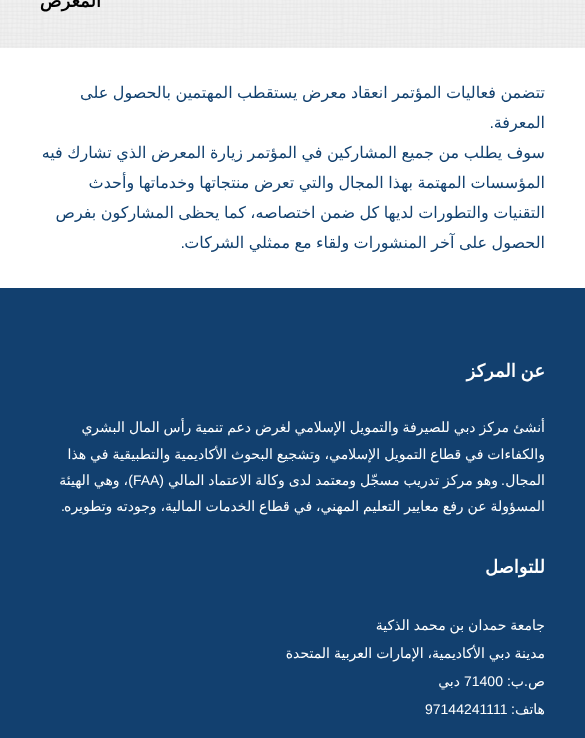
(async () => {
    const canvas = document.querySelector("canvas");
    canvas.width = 585;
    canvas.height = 738;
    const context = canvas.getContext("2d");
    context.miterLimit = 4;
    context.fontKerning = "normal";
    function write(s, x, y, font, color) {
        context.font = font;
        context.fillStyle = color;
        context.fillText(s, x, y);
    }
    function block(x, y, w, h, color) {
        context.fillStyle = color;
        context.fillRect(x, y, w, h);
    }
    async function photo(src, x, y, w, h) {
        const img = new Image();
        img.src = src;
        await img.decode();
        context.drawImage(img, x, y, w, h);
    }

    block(0, 0, 585, 738, "rgb(255, 255, 255)");
    await photo("media/1.png", 0, 0, 585, 48);
    context.direction = "rtl";
    write("المعرض", 101, 7, "bold 18px DejaVu Sans", "rgb(0, 0, 0)");
    context.wordSpacing = "-0.6px";
    write("تتضمن فعاليات المؤتمر انعقاد معرض يستقطب المهتمين بالحصول على", 545, 98, "16px DejaVu Sans", "rgb(18, 65, 111)");
    context.wordSpacing = "0px";
    write("المعرفة", 545, 128, "16px DejaVu Sans", "rgb(18, 65, 111)");
    write(".", 494, 128, "16px Liberation Sans", "rgb(18, 65, 111)");
    context.wordSpacing = "-0.6px";
    write("سوف يطلب من جميع المشاركين في المؤتمر زيارة المعرض الذي تشارك فيه", 545, 158, "16px DejaVu Sans", "rgb(18, 65, 111)");
    write("المؤسسات المهتمة بهذا المجال والتي تعرض منتجاتها وخدماتها وأحدث", 545, 188, "16px DejaVu Sans", "rgb(18, 65, 111)");
    write("التقنيات والتطورات لديها كل ضمن اختصاصه، كما يحظى المشاركون بفرص", 545, 218, "16px DejaVu Sans", "rgb(18, 65, 111)");
    write("الحصول على آخر المنشورات ولقاء مع ممثلي الشركات", 545, 248, "16px DejaVu Sans", "rgb(18, 65, 111)");
    context.wordSpacing = "0px";
    write(".", 185, 248, "16px Liberation Sans", "rgb(18, 65, 111)");
    block(0, 288, 585, 450, "rgb(18, 64, 111)");
    context.wordSpacing = "-1px";
    write("عن المركز", 545, 377, "bold 18px DejaVu Sans", "rgb(255, 255, 255)");
    context.wordSpacing = "-0.5px";
    write("أنشئ مركز دبي للصيرفة والتمويل الإسلامي لغرض دعم تنمية رأس المال البشري", 545, 432, "14px DejaVu Sans", "rgb(255, 255, 255)");
    write("والكفاءات في قطاع التمويل الإسلامي، وتشجيع البحوث الأكاديمية والتطبيقية في هذا", 545, 459, "14px DejaVu Sans", "rgb(255, 255, 255)");
    context.wordSpacing = "0px";
    write("المجال", 545, 485, "14px DejaVu Sans", "rgb(255, 255, 255)");
    write(".", 505, 485, "14px Liberation Sans", "rgb(255, 255, 255)");
    context.wordSpacing = "-0.5px";
    write("وهو مركز تدريب مسجّل ومعتمد لدى وكالة الاعتماد المالي", 498, 485, "14px DejaVu Sans", "rgb(255, 255, 255)");
    context.wordSpacing = "0px";
    write("(", 164, 485, "14px Liberation Sans", "rgb(255, 255, 255)");
    context.direction = "ltr";
    write("FAA", 133, 485, "14px Liberation Sans", "rgb(255, 255, 255)");
    context.wordSpacing = "-0.5px";
    context.direction = "rtl";
    write("، وهي الهيئة", 128, 485, "14px DejaVu Sans", "rgb(255, 255, 255)");
    context.wordSpacing = "0px";
    write(")", 133, 485, "14px Liberation Sans", "rgb(255, 255, 255)");
    context.wordSpacing = "-0.5px";
    write("المسؤولة عن رفع معايير التعليم المهني، في قطاع الخدمات المالية، وجودته وتطويره", 545, 511, "14px DejaVu Sans", "rgb(255, 255, 255)");
    context.wordSpacing = "0px";
    write(".", 65, 511, "14px Liberation Sans", "rgb(255, 255, 255)");
    write("للتواصل", 545, 573, "bold 18px DejaVu Sans", "rgb(255, 255, 255)");
    context.wordSpacing = "-0.5px";
    write("جامعة حمدان بن محمد الذكية", 545, 630, "14px DejaVu Sans", "rgb(255, 255, 255)");
    write("مدينة دبي الأكاديمية، الإمارات العربية المتحدة", 545, 658, "14px DejaVu Sans", "rgb(255, 255, 255)");
    context.wordSpacing = "0px";
    write("ص", 545, 686, "14px DejaVu Sans", "rgb(255, 255, 255)");
    write(".", 528, 686, "14px Liberation Sans", "rgb(255, 255, 255)");
    write("ب", 524, 686, "14px DejaVu Sans", "rgb(255, 255, 255)");
    write(":", 511, 686, "14px Liberation Sans", "rgb(255, 255, 255)");
    context.direction = "ltr";
    write("71400", 464, 686, "14px Liberation Sans", "rgb(255, 255, 255)");
    context.direction = "rtl";
    write("دبي", 460, 686, "14px DejaVu Sans", "rgb(255, 255, 255)");
    write("هاتف", 545, 714, "14px DejaVu Sans", "rgb(255, 255, 255)");
    write(":", 515, 714, "14px Liberation Sans", "rgb(255, 255, 255)");
    context.direction = "ltr";
    write("97144241111", 425, 714, "14px Liberation Sans", "rgb(255, 255, 255)");
})();
